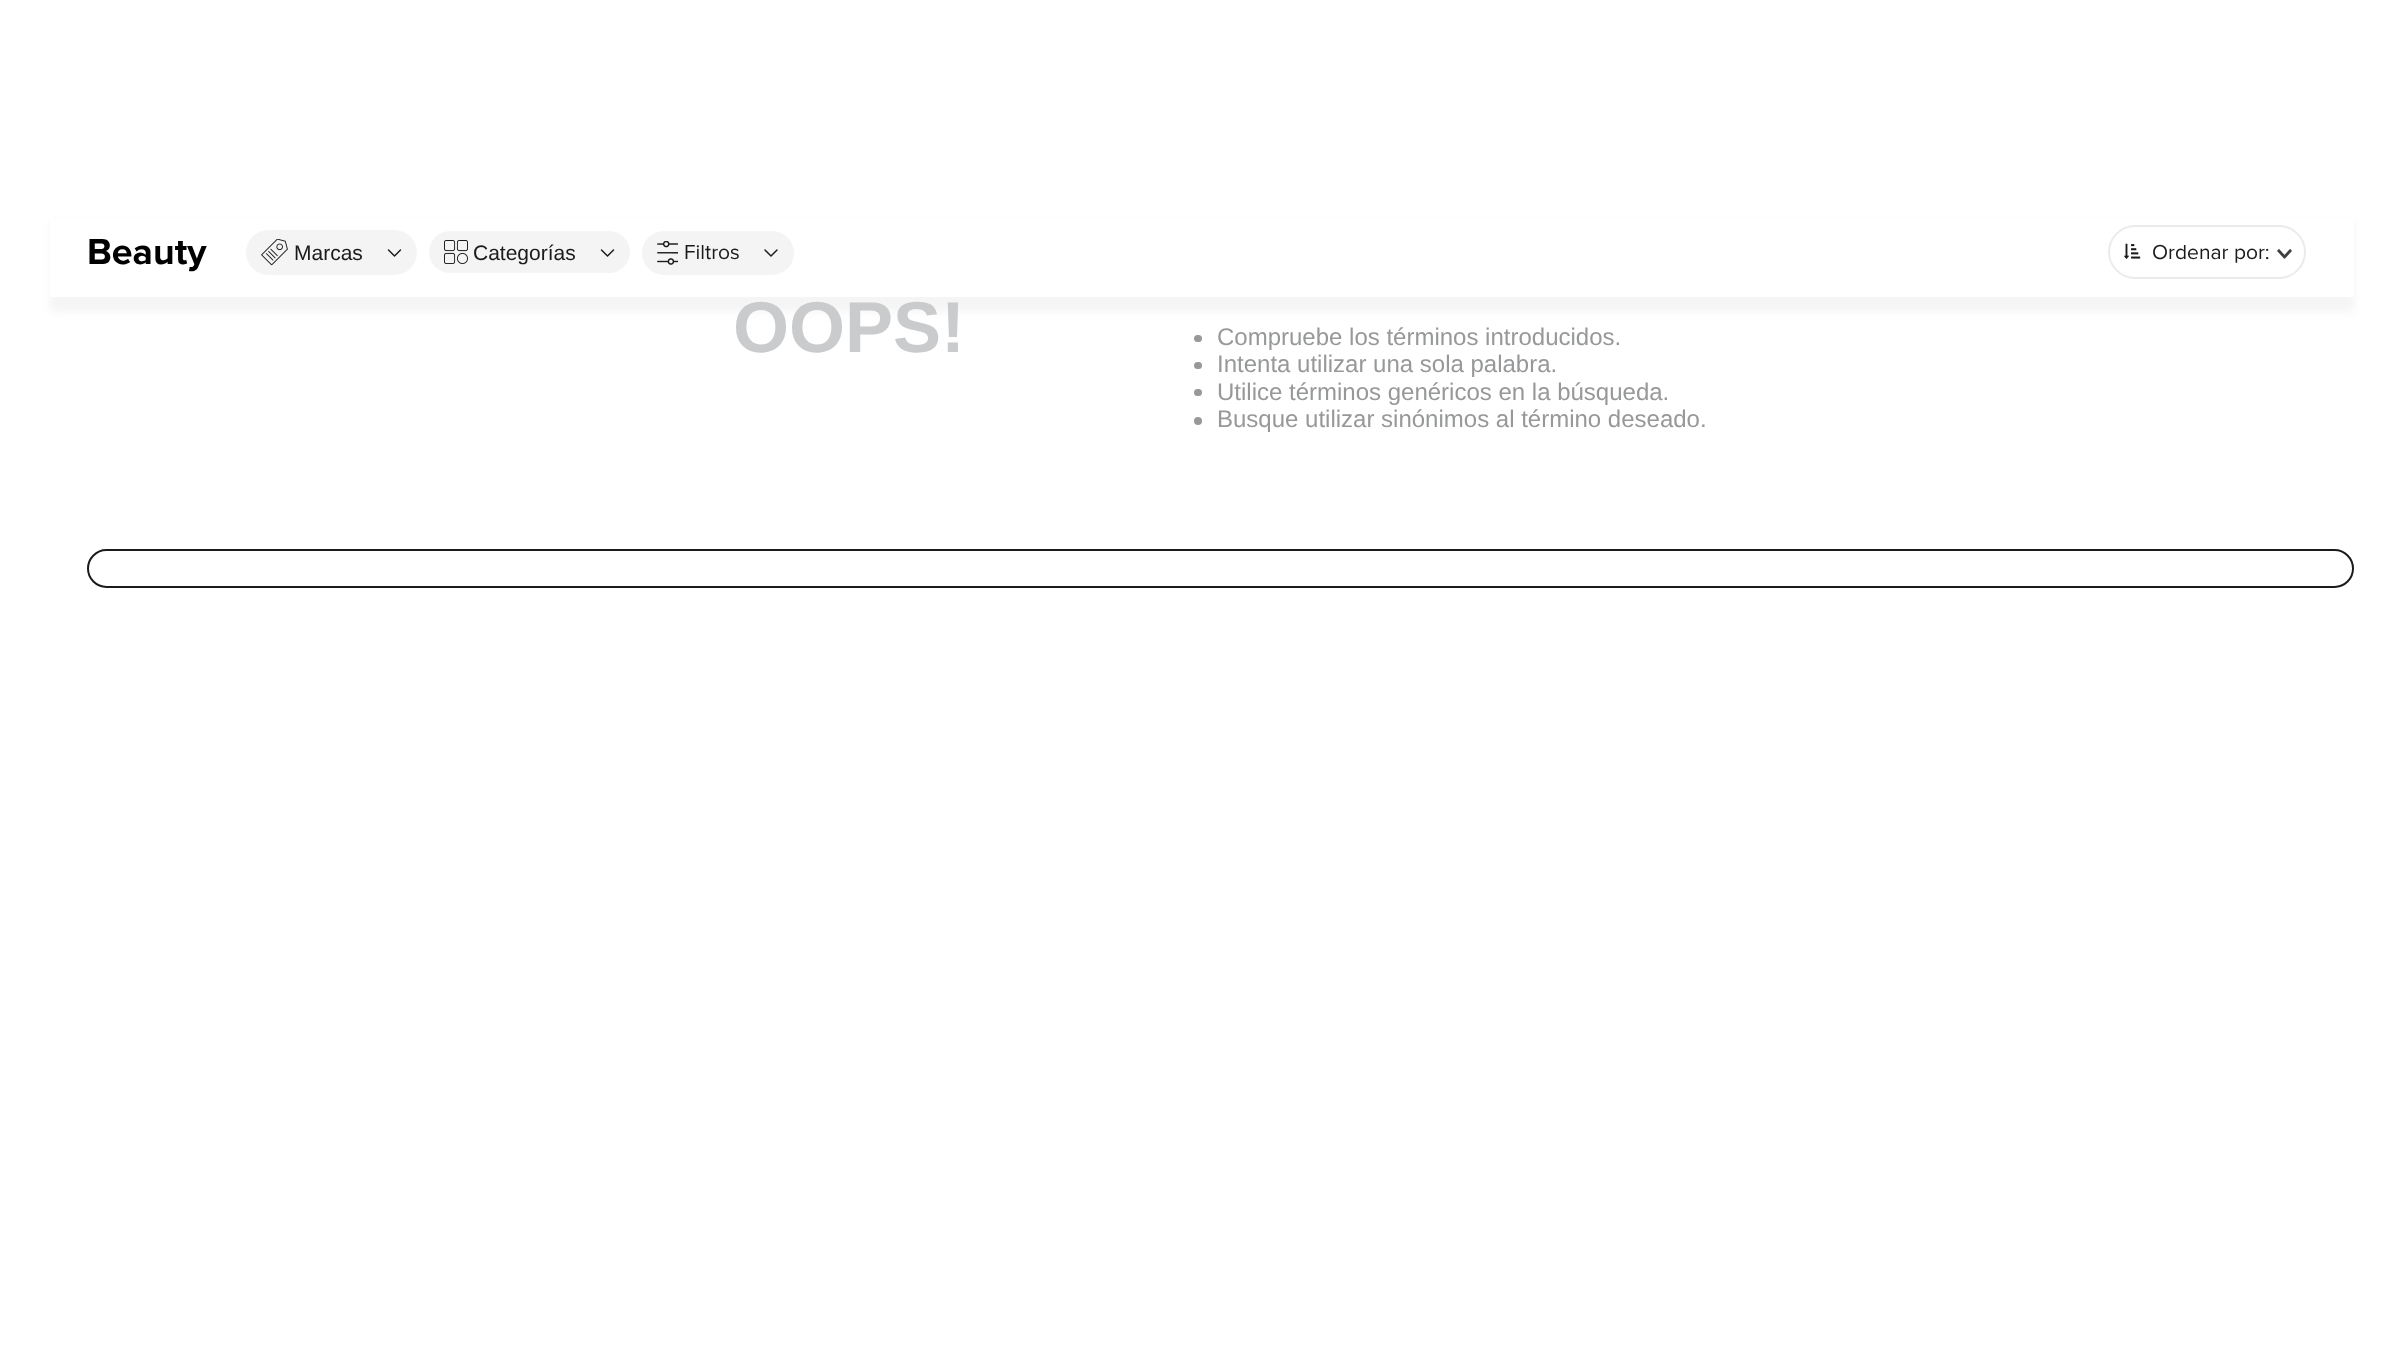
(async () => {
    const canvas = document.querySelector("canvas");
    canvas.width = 2403;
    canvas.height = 1372;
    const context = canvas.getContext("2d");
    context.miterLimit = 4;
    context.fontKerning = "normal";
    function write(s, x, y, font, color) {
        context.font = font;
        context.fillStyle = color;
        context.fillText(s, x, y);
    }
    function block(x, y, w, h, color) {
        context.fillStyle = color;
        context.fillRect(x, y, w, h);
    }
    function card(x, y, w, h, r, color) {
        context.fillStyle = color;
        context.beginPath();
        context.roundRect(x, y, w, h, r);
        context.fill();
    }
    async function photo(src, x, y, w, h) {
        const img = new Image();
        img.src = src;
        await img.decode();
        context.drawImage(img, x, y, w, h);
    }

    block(0, 0, 2403, 1372, "rgb(255, 255, 255)");
    context.fillStyle = "rgba(0, 0, 0, 0.04)";
    context.filter = "blur(4px)";
    context.beginPath();
    context.rect(50, 222, 2304, 90);
    context.fill();
    context.filter = "none";
    block(50, 219, 2304, 78, "rgb(255, 255, 255)");
    write("Beauty", 87, 264, "bold 37.5px Proxima Nova", "rgb(0, 0, 0)");
    card(246, 230, 171, 45, 22.5, "rgb(244, 244, 244)");
    await photo("media/1.png", 261, 239, 27, 27);
    write("Marcas", 294, 260, "21px Liberation Sans", "rgb(27, 27, 27)");
    context.beginPath();
    context.moveTo(388.5, 250);
    context.lineTo(394.5, 256);
    context.lineTo(400.5, 250);
    context.strokeStyle = "rgb(31, 31, 31)";
    context.lineWidth = 1.5;
    context.lineCap = "round";
    context.lineJoin = "round";
    context.stroke();
    card(429, 231, 201, 42, 21, "rgb(244, 244, 244)");
    await photo("media/2.png", 444, 240, 24, 24);
    write("Categorías", 473, 260, "21px Liberation Sans", "rgb(27, 27, 27)");
    context.beginPath();
    context.moveTo(601.5, 250);
    context.lineTo(607.5, 256);
    context.lineTo(613.5, 250);
    context.stroke();
    card(642, 231, 152, 44, 22, "rgb(244, 244, 244)");
    await photo("media/3.png", 657, 241, 21, 24);
    write("Filtros", 684, 259, "21px Proxima Nova", "rgb(27, 27, 27)");
    context.beginPath();
    context.moveTo(765, 250);
    context.lineTo(771, 256);
    context.lineTo(777, 250);
    context.stroke();
    context.beginPath();
    context.roundRect(2109, 226, 196, 52, 26);
    context.strokeStyle = "rgb(235, 235, 235)";
    context.lineWidth = 2;
    context.lineJoin = "miter";
    context.stroke();
    await photo("media/4.png", 2124, 243, 17, 16);
    write("Ordenar por:", 2152, 259, "21px Proxima Nova", "rgb(27, 27, 27)");
    await photo("media/5.png", 2277, 248, 15, 11);
    write("OOPS!", 733, 352, "bold 72px Liberation Sans", "rgb(202, 203, 204)");
    card(1194, 335, 8, 7, 3.5, "rgb(151, 152, 153)");
    write("Compruebe los términos introducidos.", 1217, 345, "24px Liberation Sans", "rgb(151, 152, 153)");
    card(1194, 362, 8, 7, 3.5, "rgb(151, 152, 153)");
    write("Intenta utilizar una sola palabra.", 1217, 372, "24px Liberation Sans", "rgb(151, 152, 153)");
    card(1194, 389, 8, 7, 3.5, "rgb(151, 152, 153)");
    write("Utilice términos genéricos en la búsqueda.", 1217, 400, "24px Liberation Sans", "rgb(151, 152, 153)");
    context.beginPath();
    context.arc(1198, 421, 4, 0, Math.PI * 2);
    context.fill();
    write("Busque utilizar sinónimos al término deseado.", 1217, 427, "24px Liberation Sans", "rgb(151, 152, 153)");
    context.beginPath();
    context.roundRect(88, 550, 2265, 37, 18.5);
    context.strokeStyle = "rgb(27, 27, 27)";
    context.stroke();
})();
